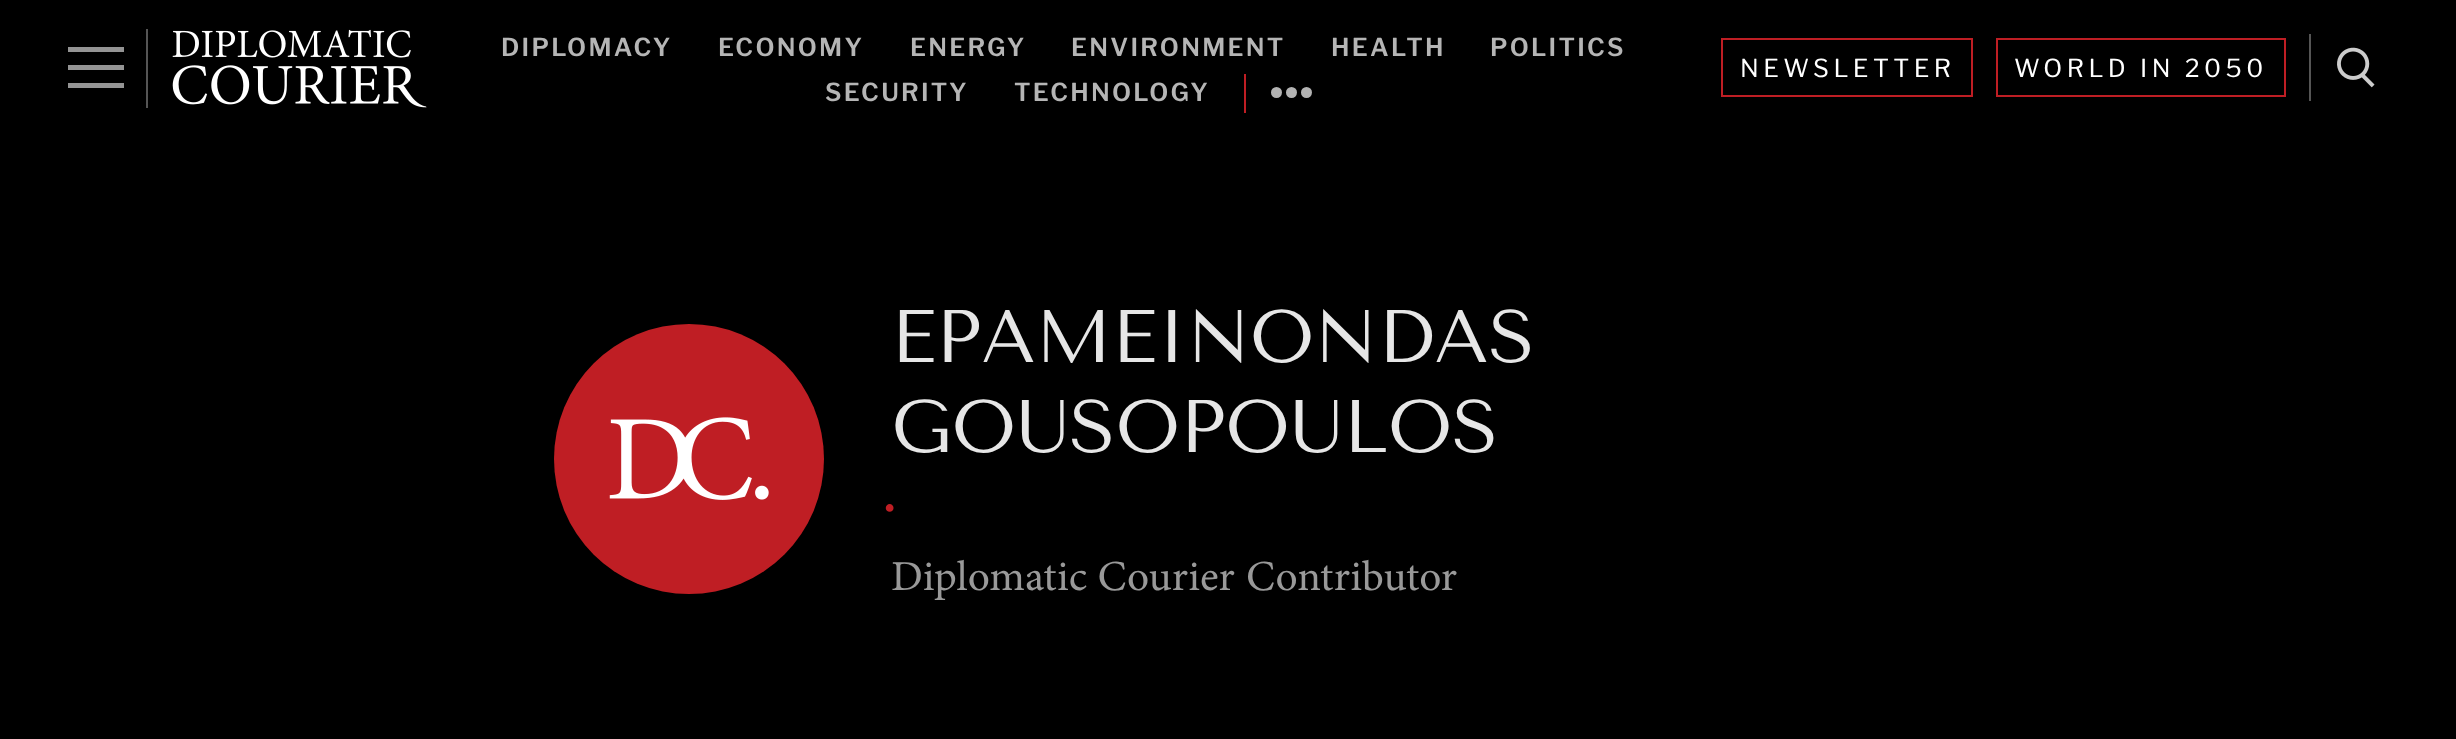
(async () => {
    const canvas = document.querySelector("canvas");
    canvas.width = 2456;
    canvas.height = 739;
    const context = canvas.getContext("2d");
    context.miterLimit = 4;
    context.fontKerning = "normal";
    function write(s, x, y, font, color) {
        context.font = font;
        context.fillStyle = color;
        context.fillText(s, x, y);
    }
    function block(x, y, w, h, color) {
        context.fillStyle = color;
        context.fillRect(x, y, w, h);
    }
    async function photo(src, x, y, w, h) {
        const img = new Image();
        img.src = src;
        await img.decode();
        context.drawImage(img, x, y, w, h);
    }

    block(0, 0, 2456, 739, "rgb(0, 0, 0)");
    block(68, 47, 56, 5, "rgb(148, 148, 148)");
    block(68, 65, 56, 5, "rgb(148, 148, 148)");
    block(68, 83, 56, 5, "rgb(148, 148, 148)");
    block(146, 29, 2, 79, "rgb(85, 85, 85)");
    await photo("media/1.png", 172, 29, 255, 79);
    context.letterSpacing = "2.25px";
    write("DIPLOMACY", 501, 56, "600 24.75px Libre Franklin", "rgb(181, 181, 181)");
    write("ECONOMY", 718, 56, "600 24.75px Libre Franklin", "rgb(181, 181, 181)");
    write("ENERGY", 910, 56, "600 24.75px Libre Franklin", "rgb(181, 181, 181)");
    write("ENVIRONMENT", 1071, 56, "600 24.75px Libre Franklin", "rgb(181, 181, 181)");
    write("HEALTH", 1331, 56, "600 24.75px Libre Franklin", "rgb(181, 181, 181)");
    write("POLITICS", 1490, 56, "600 24.75px Libre Franklin", "rgb(181, 181, 181)");
    write("SECURITY", 825, 101, "600 24.75px Libre Franklin", "rgb(181, 181, 181)");
    write("TECHNOLOGY", 1014, 101, "600 24.75px Libre Franklin", "rgb(181, 181, 181)");
    block(1244, 74, 2, 39, "rgb(191, 30, 36)");
    context.fillStyle = "rgb(179, 179, 179)";
    context.beginPath();
    context.arc(1306.5, 92.5, 5.5, 0, Math.PI * 2);
    context.fill();
    context.beginPath();
    context.arc(1276.5, 92.5, 5.5, 0, Math.PI * 2);
    context.fill();
    context.beginPath();
    context.arc(1291.5, 92.5, 5.5, 0, Math.PI * 2);
    context.fill();
    context.strokeStyle = "rgb(191, 30, 36)";
    context.lineWidth = 2;
    context.strokeRect(1722, 39, 250, 57);
    context.letterSpacing = "4.5px";
    write("NEWSLETTER", 1740, 77, "24.75px Libre Franklin", "rgb(255, 255, 255)");
    context.strokeRect(1997, 39, 288, 57);
    write("WORLD IN 2050", 2014, 77, "24.75px Libre Franklin", "rgb(255, 255, 255)");
    block(2309, 34, 2, 67, "rgb(85, 85, 85)");
    await photo("media/2.png", 2337, 47, 38, 41);
    context.fillStyle = "rgb(191, 30, 36)";
    context.beginPath();
    context.arc(689, 459, 135, 0, Math.PI * 2);
    context.fill();
    await photo("media/3.png", 609, 417, 160, 83);
    context.letterSpacing = "0px";
    write("EPAMEINONDAS", 891, 362, "74.25px Tenor Sans", "rgb(230, 230, 230)");
    write("GOUSOPOULOS", 891, 452, "74.25px Tenor Sans", "rgb(230, 230, 230)");
    write(".", 880, 511, "72px Tenor Sans", "rgb(191, 30, 36)");
    write("Diplomatic Courier", 891, 590, "42.75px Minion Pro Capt", "rgb(153, 153, 153)");
    write("Contributor", 1246, 590, "42.75px Minion Pro Capt", "rgb(153, 153, 153)");
})();
